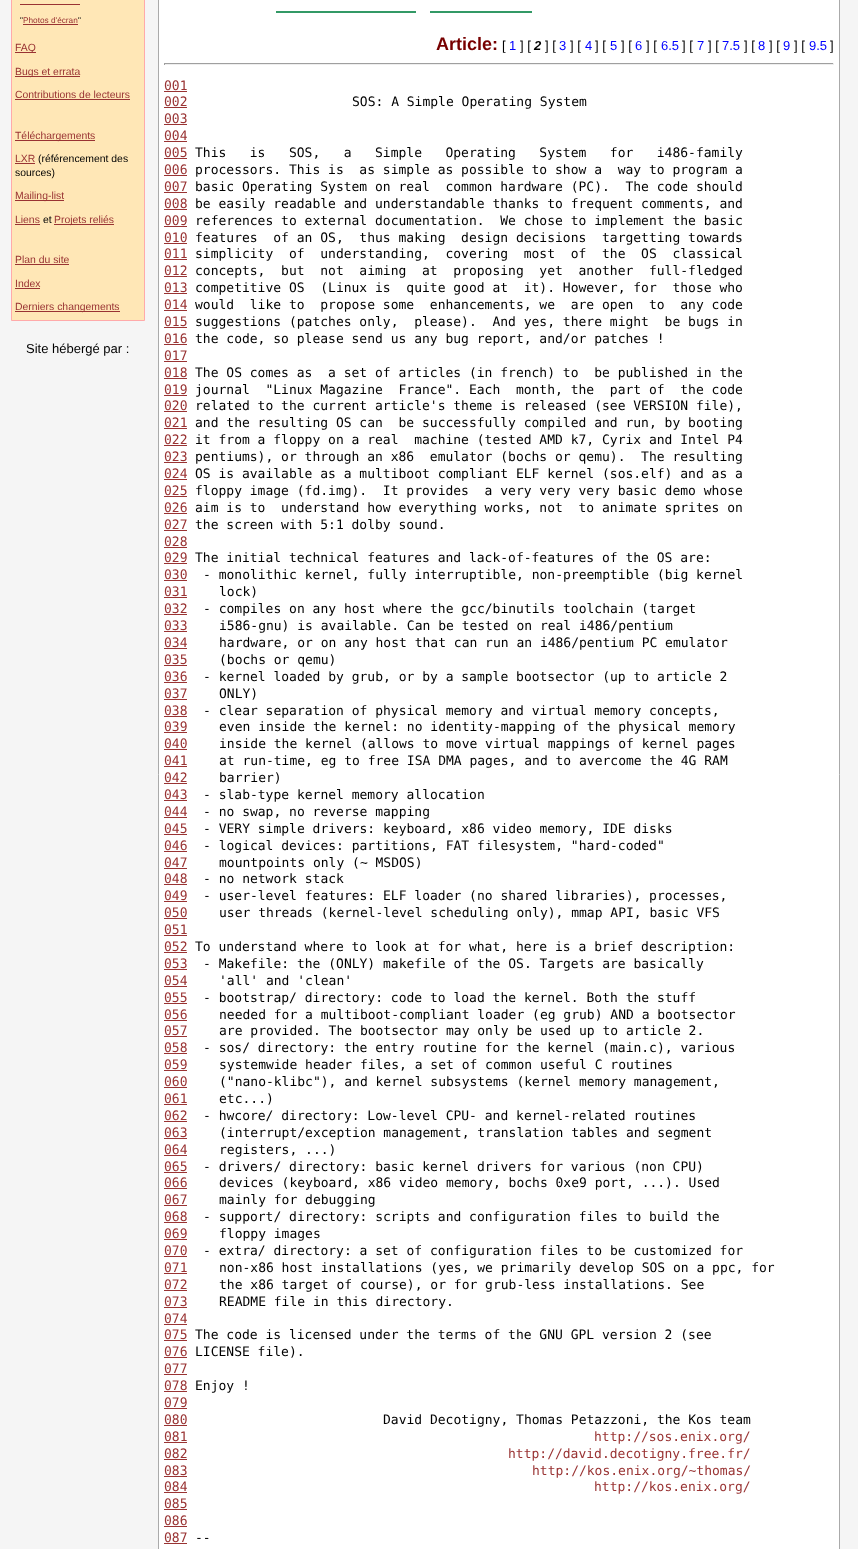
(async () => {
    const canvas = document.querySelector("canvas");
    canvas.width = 858;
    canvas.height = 1549;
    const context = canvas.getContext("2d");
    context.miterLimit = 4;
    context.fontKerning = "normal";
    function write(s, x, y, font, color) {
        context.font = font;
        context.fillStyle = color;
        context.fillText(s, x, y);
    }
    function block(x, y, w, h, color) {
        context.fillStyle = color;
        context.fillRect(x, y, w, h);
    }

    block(0, 0, 858, 1549, "rgb(245, 245, 245)");
    context.fillStyle = "rgb(255, 231, 182)";
    context.beginPath();
    context.rect(11.5, -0.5, 133, 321);
    context.fill();
    context.strokeStyle = "rgb(255, 170, 170)";
    context.stroke();
    block(20, 4, 60, 1, "rgb(153, 51, 51)");
    write("\"", 20, 23, "8.25px Liberation Sans", "rgb(0, 0, 0)");
    write("Photos d'écran", 23, 23, "8.25px Liberation Sans", "rgb(153, 51, 51)");
    block(23, 24, 55, 1, "rgb(153, 51, 51)");
    write("\"", 78, 23, "8.25px Liberation Sans", "rgb(0, 0, 0)");
    block(15, 52, 21, 1, "rgb(153, 51, 51)");
    write("FAQ", 15, 51, "10.4px Liberation Sans", "rgb(153, 51, 51)");
    block(15, 76, 65, 1, "rgb(153, 51, 51)");
    write("Bugs et errata", 15, 75, "10.4px Liberation Sans", "rgb(153, 51, 51)");
    write("Contributions de lecteurs", 15, 98, "10.4px Liberation Sans", "rgb(153, 51, 51)");
    block(15, 99, 115, 1, "rgb(153, 51, 51)");
    block(15, 140, 80, 1, "rgb(153, 51, 51)");
    write("Téléchargements", 15, 139, "10.4px Liberation Sans", "rgb(153, 51, 51)");
    write("LXR", 15, 162, "10.4px Liberation Sans", "rgb(153, 51, 51)");
    block(15, 163, 20, 1, "rgb(153, 51, 51)");
    write("(référencement des", 38, 162, "10.4px Liberation Sans", "rgb(0, 0, 0)");
    write("sources)", 15, 176, "10.4px Liberation Sans", "rgb(0, 0, 0)");
    block(15, 200, 49, 1, "rgb(153, 51, 51)");
    write("Mailing-list", 15, 199, "10.4px Liberation Sans", "rgb(153, 51, 51)");
    write("Liens", 15, 223, "10.4px Liberation Sans", "rgb(153, 51, 51)");
    block(15, 224, 25, 1, "rgb(153, 51, 51)");
    write("et", 43, 223, "10.4px Liberation Sans", "rgb(0, 0, 0)");
    block(54, 224, 60, 1, "rgb(153, 51, 51)");
    write("Projets reliés", 54, 223, "10.4px Liberation Sans", "rgb(153, 51, 51)");
    write("Plan du site", 15, 263, "10.4px Liberation Sans", "rgb(153, 51, 51)");
    block(15, 264, 54, 1, "rgb(153, 51, 51)");
    write("Index", 15, 287, "10.4px Liberation Sans", "rgb(153, 51, 51)");
    block(15, 288, 25, 1, "rgb(153, 51, 51)");
    block(15, 311, 105, 1, "rgb(153, 51, 51)");
    write("Derniers changements", 15, 310, "10.4px Liberation Sans", "rgb(153, 51, 51)");
    write("Site hébergé par :", 26, 353, "13px Liberation Sans", "rgb(0, 0, 0)");
    context.fillStyle = "rgb(255, 255, 255)";
    context.beginPath();
    context.rect(158.5, -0.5, 681, 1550);
    context.fill();
    context.strokeStyle = "rgb(170, 170, 170)";
    context.stroke();
    block(276, 11, 140, 2, "rgb(51, 153, 102)");
    block(430, 11, 102, 2, "rgb(51, 153, 102)");
    write("Article:", 436, 50, "bold 18px Liberation Sans", "rgb(119, 0, 0)");
    write("[", 502, 50, "13px Liberation Sans", "rgb(0, 0, 0)");
    write("1", 509, 50, "13px Liberation Sans", "rgb(0, 0, 255)");
    write("] [", 520, 50, "13px Liberation Sans", "rgb(0, 0, 0)");
    write("2", 534, 50, "italic bold 13px Liberation Sans", "rgb(0, 0, 0)");
    write("] [", 545, 50, "13px Liberation Sans", "rgb(0, 0, 0)");
    write("3", 559, 50, "13px Liberation Sans", "rgb(0, 0, 255)");
    write("] [", 570, 50, "13px Liberation Sans", "rgb(0, 0, 0)");
    write("4", 585, 50, "13px Liberation Sans", "rgb(0, 0, 255)");
    write("] [", 595, 50, "13px Liberation Sans", "rgb(0, 0, 0)");
    write("5", 610, 50, "13px Liberation Sans", "rgb(0, 0, 255)");
    write("] [", 621, 50, "13px Liberation Sans", "rgb(0, 0, 0)");
    write("6", 635, 50, "13px Liberation Sans", "rgb(0, 0, 255)");
    write("] [", 646, 50, "13px Liberation Sans", "rgb(0, 0, 0)");
    write("6.5", 661, 50, "13px Liberation Sans", "rgb(0, 0, 255)");
    write("] [", 682, 50, "13px Liberation Sans", "rgb(0, 0, 0)");
    write("7", 697, 50, "13px Liberation Sans", "rgb(0, 0, 255)");
    write("] [", 708, 50, "13px Liberation Sans", "rgb(0, 0, 0)");
    write("7.5", 722, 50, "13px Liberation Sans", "rgb(0, 0, 255)");
    write("] [", 744, 50, "13px Liberation Sans", "rgb(0, 0, 0)");
    write("8", 758, 50, "13px Liberation Sans", "rgb(0, 0, 255)");
    write("] [", 769, 50, "13px Liberation Sans", "rgb(0, 0, 0)");
    write("9", 783, 50, "13px Liberation Sans", "rgb(0, 0, 255)");
    write("] [", 794, 50, "13px Liberation Sans", "rgb(0, 0, 0)");
    write("9.5", 809, 50, "13px Liberation Sans", "rgb(0, 0, 255)");
    write("]", 830, 50, "13px Liberation Sans", "rgb(0, 0, 0)");
    block(164, 63, 670, 1, "rgb(159, 159, 159)");
    block(833, 63, 1, 2, "rgb(238, 238, 238)");
    block(164, 64, 670, 1, "rgb(238, 238, 238)");
    block(164, 63, 1, 2, "rgb(159, 159, 159)");
    write("001", 164, 90, "13px DejaVu Sans Mono", "rgb(153, 51, 51)");
    block(164, 91, 23, 1, "rgb(153, 51, 51)");
    write("002", 164, 106, "13px DejaVu Sans Mono", "rgb(153, 51, 51)");
    block(164, 107, 23, 1, "rgb(153, 51, 51)");
    write("SOS: A Simple Operating System", 352, 106, "13px DejaVu Sans Mono", "rgb(0, 0, 0)");
    write("003", 164, 123, "13px DejaVu Sans Mono", "rgb(153, 51, 51)");
    block(164, 124, 23, 1, "rgb(153, 51, 51)");
    write("004", 164, 140, "13px DejaVu Sans Mono", "rgb(153, 51, 51)");
    block(164, 141, 23, 1, "rgb(153, 51, 51)");
    write("005", 164, 157, "13px DejaVu Sans Mono", "rgb(153, 51, 51)");
    block(164, 158, 23, 1, "rgb(153, 51, 51)");
    write("This   is   SOS,   a   Simple   Operating   System   for   i486-family", 195, 157, "13px DejaVu Sans Mono", "rgb(0, 0, 0)");
    write("006", 164, 174, "13px DejaVu Sans Mono", "rgb(153, 51, 51)");
    block(164, 175, 23, 1, "rgb(153, 51, 51)");
    write("processors. This is  as simple as possible to show a  way to program a", 195, 174, "13px DejaVu Sans Mono", "rgb(0, 0, 0)");
    write("007", 164, 191, "13px DejaVu Sans Mono", "rgb(153, 51, 51)");
    block(164, 192, 23, 1, "rgb(153, 51, 51)");
    write("basic Operating System on real  common hardware (PC).  The code should", 195, 191, "13px DejaVu Sans Mono", "rgb(0, 0, 0)");
    write("008", 164, 208, "13px DejaVu Sans Mono", "rgb(153, 51, 51)");
    block(164, 209, 23, 1, "rgb(153, 51, 51)");
    write("be easily readable and understandable thanks to frequent comments, and", 195, 208, "13px DejaVu Sans Mono", "rgb(0, 0, 0)");
    write("009", 164, 225, "13px DejaVu Sans Mono", "rgb(153, 51, 51)");
    block(164, 226, 23, 1, "rgb(153, 51, 51)");
    write("references to external documentation.  We chose to implement the basic", 195, 225, "13px DejaVu Sans Mono", "rgb(0, 0, 0)");
    write("010", 164, 242, "13px DejaVu Sans Mono", "rgb(153, 51, 51)");
    block(164, 243, 23, 1, "rgb(153, 51, 51)");
    write("features  of an OS,  thus making  design decisions  targetting towards", 195, 242, "13px DejaVu Sans Mono", "rgb(0, 0, 0)");
    write("011", 164, 258, "13px DejaVu Sans Mono", "rgb(153, 51, 51)");
    block(164, 259, 23, 1, "rgb(153, 51, 51)");
    write("simplicity  of  understanding,  covering  most  of  the  OS  classical", 195, 258, "13px DejaVu Sans Mono", "rgb(0, 0, 0)");
    write("012", 164, 275, "13px DejaVu Sans Mono", "rgb(153, 51, 51)");
    block(164, 276, 23, 1, "rgb(153, 51, 51)");
    write("concepts,  but  not  aiming  at  proposing  yet  another  full-fledged", 195, 275, "13px DejaVu Sans Mono", "rgb(0, 0, 0)");
    write("013", 164, 292, "13px DejaVu Sans Mono", "rgb(153, 51, 51)");
    block(164, 293, 23, 1, "rgb(153, 51, 51)");
    write("competitive OS  (Linux is  quite good at  it). However, for  those who", 195, 292, "13px DejaVu Sans Mono", "rgb(0, 0, 0)");
    write("014", 164, 309, "13px DejaVu Sans Mono", "rgb(153, 51, 51)");
    block(164, 310, 23, 1, "rgb(153, 51, 51)");
    write("would  like to  propose some  enhancements, we  are open  to  any code", 195, 309, "13px DejaVu Sans Mono", "rgb(0, 0, 0)");
    write("015", 164, 326, "13px DejaVu Sans Mono", "rgb(153, 51, 51)");
    block(164, 327, 23, 1, "rgb(153, 51, 51)");
    write("suggestions (patches only,  please).  And yes, there might  be bugs in", 195, 326, "13px DejaVu Sans Mono", "rgb(0, 0, 0)");
    write("016", 164, 343, "13px DejaVu Sans Mono", "rgb(153, 51, 51)");
    block(164, 344, 23, 1, "rgb(153, 51, 51)");
    write("the code, so please send us any bug report, and/or patches !", 195, 343, "13px DejaVu Sans Mono", "rgb(0, 0, 0)");
    write("017", 164, 360, "13px DejaVu Sans Mono", "rgb(153, 51, 51)");
    block(164, 361, 23, 1, "rgb(153, 51, 51)");
    write("018", 164, 377, "13px DejaVu Sans Mono", "rgb(153, 51, 51)");
    block(164, 378, 23, 1, "rgb(153, 51, 51)");
    write("The OS comes as  a set of articles (in french) to  be published in the", 195, 377, "13px DejaVu Sans Mono", "rgb(0, 0, 0)");
    write("019", 164, 394, "13px DejaVu Sans Mono", "rgb(153, 51, 51)");
    block(164, 395, 23, 1, "rgb(153, 51, 51)");
    write("journal  \"Linux Magazine  France\". Each  month, the  part of  the code", 195, 394, "13px DejaVu Sans Mono", "rgb(0, 0, 0)");
    write("020", 164, 410, "13px DejaVu Sans Mono", "rgb(153, 51, 51)");
    block(164, 411, 23, 1, "rgb(153, 51, 51)");
    write("related to the current article's theme is released (see VERSION file),", 195, 410, "13px DejaVu Sans Mono", "rgb(0, 0, 0)");
    write("021", 164, 427, "13px DejaVu Sans Mono", "rgb(153, 51, 51)");
    block(164, 428, 23, 1, "rgb(153, 51, 51)");
    write("and the resulting OS can  be successfully compiled and run, by booting", 195, 427, "13px DejaVu Sans Mono", "rgb(0, 0, 0)");
    write("022", 164, 444, "13px DejaVu Sans Mono", "rgb(153, 51, 51)");
    block(164, 445, 23, 1, "rgb(153, 51, 51)");
    write("it from a floppy on a real  machine (tested AMD k7, Cyrix and Intel P4", 195, 444, "13px DejaVu Sans Mono", "rgb(0, 0, 0)");
    write("023", 164, 461, "13px DejaVu Sans Mono", "rgb(153, 51, 51)");
    block(164, 462, 23, 1, "rgb(153, 51, 51)");
    write("pentiums), or through an x86  emulator (bochs or qemu).  The resulting", 195, 461, "13px DejaVu Sans Mono", "rgb(0, 0, 0)");
    write("024", 164, 478, "13px DejaVu Sans Mono", "rgb(153, 51, 51)");
    block(164, 479, 23, 1, "rgb(153, 51, 51)");
    write("OS is available as a multiboot compliant ELF kernel (sos.elf) and as a", 195, 478, "13px DejaVu Sans Mono", "rgb(0, 0, 0)");
    write("025", 164, 495, "13px DejaVu Sans Mono", "rgb(153, 51, 51)");
    block(164, 496, 23, 1, "rgb(153, 51, 51)");
    write("floppy image (fd.img).  It provides  a very very very basic demo whose", 195, 495, "13px DejaVu Sans Mono", "rgb(0, 0, 0)");
    write("026", 164, 512, "13px DejaVu Sans Mono", "rgb(153, 51, 51)");
    block(164, 513, 23, 1, "rgb(153, 51, 51)");
    write("aim is to  understand how everything works, not  to animate sprites on", 195, 512, "13px DejaVu Sans Mono", "rgb(0, 0, 0)");
    write("027", 164, 529, "13px DejaVu Sans Mono", "rgb(153, 51, 51)");
    block(164, 530, 23, 1, "rgb(153, 51, 51)");
    write("the screen with 5:1 dolby sound.", 195, 529, "13px DejaVu Sans Mono", "rgb(0, 0, 0)");
    write("028", 164, 546, "13px DejaVu Sans Mono", "rgb(153, 51, 51)");
    block(164, 547, 23, 1, "rgb(153, 51, 51)");
    write("029", 164, 562, "13px DejaVu Sans Mono", "rgb(153, 51, 51)");
    block(164, 563, 23, 1, "rgb(153, 51, 51)");
    write("The initial technical features and lack-of-features of the OS are:", 195, 562, "13px DejaVu Sans Mono", "rgb(0, 0, 0)");
    write("030", 164, 579, "13px DejaVu Sans Mono", "rgb(153, 51, 51)");
    block(164, 580, 23, 1, "rgb(153, 51, 51)");
    write("- monolithic kernel, fully interruptible, non-preemptible (big kernel", 203, 579, "13px DejaVu Sans Mono", "rgb(0, 0, 0)");
    write("031", 164, 596, "13px DejaVu Sans Mono", "rgb(153, 51, 51)");
    block(164, 597, 23, 1, "rgb(153, 51, 51)");
    write("lock)", 219, 596, "13px DejaVu Sans Mono", "rgb(0, 0, 0)");
    write("032", 164, 613, "13px DejaVu Sans Mono", "rgb(153, 51, 51)");
    block(164, 614, 23, 1, "rgb(153, 51, 51)");
    write("- compiles on any host where the gcc/binutils toolchain (target", 203, 613, "13px DejaVu Sans Mono", "rgb(0, 0, 0)");
    write("033", 164, 630, "13px DejaVu Sans Mono", "rgb(153, 51, 51)");
    block(164, 631, 23, 1, "rgb(153, 51, 51)");
    write("i586-gnu) is available. Can be tested on real i486/pentium", 219, 630, "13px DejaVu Sans Mono", "rgb(0, 0, 0)");
    write("034", 164, 647, "13px DejaVu Sans Mono", "rgb(153, 51, 51)");
    block(164, 648, 23, 1, "rgb(153, 51, 51)");
    write("hardware, or on any host that can run an i486/pentium PC emulator", 219, 647, "13px DejaVu Sans Mono", "rgb(0, 0, 0)");
    write("035", 164, 664, "13px DejaVu Sans Mono", "rgb(153, 51, 51)");
    block(164, 665, 23, 1, "rgb(153, 51, 51)");
    write("(bochs or qemu)", 219, 664, "13px DejaVu Sans Mono", "rgb(0, 0, 0)");
    write("036", 164, 681, "13px DejaVu Sans Mono", "rgb(153, 51, 51)");
    block(164, 682, 23, 1, "rgb(153, 51, 51)");
    write("- kernel loaded by grub, or by a sample bootsector (up to article 2", 203, 681, "13px DejaVu Sans Mono", "rgb(0, 0, 0)");
    write("037", 164, 698, "13px DejaVu Sans Mono", "rgb(153, 51, 51)");
    block(164, 699, 23, 1, "rgb(153, 51, 51)");
    write("ONLY)", 219, 698, "13px DejaVu Sans Mono", "rgb(0, 0, 0)");
    write("038", 164, 715, "13px DejaVu Sans Mono", "rgb(153, 51, 51)");
    block(164, 716, 23, 1, "rgb(153, 51, 51)");
    write("- clear separation of physical memory and virtual memory concepts,", 203, 715, "13px DejaVu Sans Mono", "rgb(0, 0, 0)");
    write("039", 164, 731, "13px DejaVu Sans Mono", "rgb(153, 51, 51)");
    block(164, 732, 23, 1, "rgb(153, 51, 51)");
    write("even inside the kernel: no identity-mapping of the physical memory", 219, 731, "13px DejaVu Sans Mono", "rgb(0, 0, 0)");
    write("040", 164, 748, "13px DejaVu Sans Mono", "rgb(153, 51, 51)");
    block(164, 749, 23, 1, "rgb(153, 51, 51)");
    write("inside the kernel (allows to move virtual mappings of kernel pages", 219, 748, "13px DejaVu Sans Mono", "rgb(0, 0, 0)");
    write("041", 164, 765, "13px DejaVu Sans Mono", "rgb(153, 51, 51)");
    block(164, 766, 23, 1, "rgb(153, 51, 51)");
    write("at run-time, eg to free ISA DMA pages, and to avercome the 4G RAM", 219, 765, "13px DejaVu Sans Mono", "rgb(0, 0, 0)");
    write("042", 164, 782, "13px DejaVu Sans Mono", "rgb(153, 51, 51)");
    block(164, 783, 23, 1, "rgb(153, 51, 51)");
    write("barrier)", 219, 782, "13px DejaVu Sans Mono", "rgb(0, 0, 0)");
    write("043", 164, 799, "13px DejaVu Sans Mono", "rgb(153, 51, 51)");
    block(164, 800, 23, 1, "rgb(153, 51, 51)");
    write("- slab-type kernel memory allocation", 203, 799, "13px DejaVu Sans Mono", "rgb(0, 0, 0)");
    write("044", 164, 816, "13px DejaVu Sans Mono", "rgb(153, 51, 51)");
    block(164, 817, 23, 1, "rgb(153, 51, 51)");
    write("- no swap, no reverse mapping", 203, 816, "13px DejaVu Sans Mono", "rgb(0, 0, 0)");
    write("045", 164, 833, "13px DejaVu Sans Mono", "rgb(153, 51, 51)");
    block(164, 834, 23, 1, "rgb(153, 51, 51)");
    write("- VERY simple drivers: keyboard, x86 video memory, IDE disks", 203, 833, "13px DejaVu Sans Mono", "rgb(0, 0, 0)");
    write("046", 164, 850, "13px DejaVu Sans Mono", "rgb(153, 51, 51)");
    block(164, 851, 23, 1, "rgb(153, 51, 51)");
    write("- logical devices: partitions, FAT filesystem, \"hard-coded\"", 203, 850, "13px DejaVu Sans Mono", "rgb(0, 0, 0)");
    write("047", 164, 867, "13px DejaVu Sans Mono", "rgb(153, 51, 51)");
    block(164, 868, 23, 1, "rgb(153, 51, 51)");
    write("mountpoints only (~ MSDOS)", 219, 867, "13px DejaVu Sans Mono", "rgb(0, 0, 0)");
    write("048", 164, 883, "13px DejaVu Sans Mono", "rgb(153, 51, 51)");
    block(164, 884, 23, 1, "rgb(153, 51, 51)");
    write("- no network stack", 203, 883, "13px DejaVu Sans Mono", "rgb(0, 0, 0)");
    write("049", 164, 900, "13px DejaVu Sans Mono", "rgb(153, 51, 51)");
    block(164, 901, 23, 1, "rgb(153, 51, 51)");
    write("- user-level features: ELF loader (no shared libraries), processes,", 203, 900, "13px DejaVu Sans Mono", "rgb(0, 0, 0)");
    write("050", 164, 917, "13px DejaVu Sans Mono", "rgb(153, 51, 51)");
    block(164, 918, 23, 1, "rgb(153, 51, 51)");
    write("user threads (kernel-level scheduling only), mmap API, basic VFS", 219, 917, "13px DejaVu Sans Mono", "rgb(0, 0, 0)");
    write("051", 164, 934, "13px DejaVu Sans Mono", "rgb(153, 51, 51)");
    block(164, 935, 23, 1, "rgb(153, 51, 51)");
    write("052", 164, 951, "13px DejaVu Sans Mono", "rgb(153, 51, 51)");
    block(164, 952, 23, 1, "rgb(153, 51, 51)");
    write("To understand where to look at for what, here is a brief description:", 195, 951, "13px DejaVu Sans Mono", "rgb(0, 0, 0)");
    write("053", 164, 968, "13px DejaVu Sans Mono", "rgb(153, 51, 51)");
    block(164, 969, 23, 1, "rgb(153, 51, 51)");
    write("- Makefile: the (ONLY) makefile of the OS. Targets are basically", 203, 968, "13px DejaVu Sans Mono", "rgb(0, 0, 0)");
    write("054", 164, 985, "13px DejaVu Sans Mono", "rgb(153, 51, 51)");
    block(164, 986, 23, 1, "rgb(153, 51, 51)");
    write("'all' and 'clean'", 219, 985, "13px DejaVu Sans Mono", "rgb(0, 0, 0)");
    write("055", 164, 1002, "13px DejaVu Sans Mono", "rgb(153, 51, 51)");
    block(164, 1003, 23, 1, "rgb(153, 51, 51)");
    write("- bootstrap/ directory: code to load the kernel. Both the stuff", 203, 1002, "13px DejaVu Sans Mono", "rgb(0, 0, 0)");
    write("056", 164, 1019, "13px DejaVu Sans Mono", "rgb(153, 51, 51)");
    block(164, 1020, 23, 1, "rgb(153, 51, 51)");
    write("needed for a multiboot-compliant loader (eg grub) AND a bootsector", 219, 1019, "13px DejaVu Sans Mono", "rgb(0, 0, 0)");
    write("057", 164, 1035, "13px DejaVu Sans Mono", "rgb(153, 51, 51)");
    block(164, 1036, 23, 1, "rgb(153, 51, 51)");
    write("are provided. The bootsector may only be used up to article 2.", 219, 1035, "13px DejaVu Sans Mono", "rgb(0, 0, 0)");
    write("058", 164, 1052, "13px DejaVu Sans Mono", "rgb(153, 51, 51)");
    block(164, 1053, 23, 1, "rgb(153, 51, 51)");
    write("- sos/ directory: the entry routine for the kernel (main.c), various", 203, 1052, "13px DejaVu Sans Mono", "rgb(0, 0, 0)");
    write("059", 164, 1069, "13px DejaVu Sans Mono", "rgb(153, 51, 51)");
    block(164, 1070, 23, 1, "rgb(153, 51, 51)");
    write("systemwide header files, a set of common useful C routines", 219, 1069, "13px DejaVu Sans Mono", "rgb(0, 0, 0)");
    write("060", 164, 1086, "13px DejaVu Sans Mono", "rgb(153, 51, 51)");
    block(164, 1087, 23, 1, "rgb(153, 51, 51)");
    write("(\"nano-klibc\"), and kernel subsystems (kernel memory management,", 219, 1086, "13px DejaVu Sans Mono", "rgb(0, 0, 0)");
    write("061", 164, 1103, "13px DejaVu Sans Mono", "rgb(153, 51, 51)");
    block(164, 1104, 23, 1, "rgb(153, 51, 51)");
    write("etc...)", 219, 1103, "13px DejaVu Sans Mono", "rgb(0, 0, 0)");
    write("062", 164, 1120, "13px DejaVu Sans Mono", "rgb(153, 51, 51)");
    block(164, 1121, 23, 1, "rgb(153, 51, 51)");
    write("- hwcore/ directory: Low-level CPU- and kernel-related routines", 203, 1120, "13px DejaVu Sans Mono", "rgb(0, 0, 0)");
    write("063", 164, 1137, "13px DejaVu Sans Mono", "rgb(153, 51, 51)");
    block(164, 1138, 23, 1, "rgb(153, 51, 51)");
    write("(interrupt/exception management, translation tables and segment", 219, 1137, "13px DejaVu Sans Mono", "rgb(0, 0, 0)");
    write("064", 164, 1154, "13px DejaVu Sans Mono", "rgb(153, 51, 51)");
    block(164, 1155, 23, 1, "rgb(153, 51, 51)");
    write("registers, ...)", 219, 1154, "13px DejaVu Sans Mono", "rgb(0, 0, 0)");
    write("065", 164, 1171, "13px DejaVu Sans Mono", "rgb(153, 51, 51)");
    block(164, 1172, 23, 1, "rgb(153, 51, 51)");
    write("- drivers/ directory: basic kernel drivers for various (non CPU)", 203, 1171, "13px DejaVu Sans Mono", "rgb(0, 0, 0)");
    write("066", 164, 1187, "13px DejaVu Sans Mono", "rgb(153, 51, 51)");
    block(164, 1188, 23, 1, "rgb(153, 51, 51)");
    write("devices (keyboard, x86 video memory, bochs 0xe9 port, ...). Used", 219, 1187, "13px DejaVu Sans Mono", "rgb(0, 0, 0)");
    write("067", 164, 1204, "13px DejaVu Sans Mono", "rgb(153, 51, 51)");
    block(164, 1205, 23, 1, "rgb(153, 51, 51)");
    write("mainly for debugging", 219, 1204, "13px DejaVu Sans Mono", "rgb(0, 0, 0)");
    write("068", 164, 1221, "13px DejaVu Sans Mono", "rgb(153, 51, 51)");
    block(164, 1222, 23, 1, "rgb(153, 51, 51)");
    write("- support/ directory: scripts and configuration files to build the", 203, 1221, "13px DejaVu Sans Mono", "rgb(0, 0, 0)");
    write("069", 164, 1238, "13px DejaVu Sans Mono", "rgb(153, 51, 51)");
    block(164, 1239, 23, 1, "rgb(153, 51, 51)");
    write("floppy images", 219, 1238, "13px DejaVu Sans Mono", "rgb(0, 0, 0)");
    write("070", 164, 1255, "13px DejaVu Sans Mono", "rgb(153, 51, 51)");
    block(164, 1256, 23, 1, "rgb(153, 51, 51)");
    write("- extra/ directory: a set of configuration files to be customized for", 203, 1255, "13px DejaVu Sans Mono", "rgb(0, 0, 0)");
    write("071", 164, 1272, "13px DejaVu Sans Mono", "rgb(153, 51, 51)");
    block(164, 1273, 23, 1, "rgb(153, 51, 51)");
    write("non-x86 host installations (yes, we primarily develop SOS on a ppc, for", 219, 1272, "13px DejaVu Sans Mono", "rgb(0, 0, 0)");
    write("072", 164, 1289, "13px DejaVu Sans Mono", "rgb(153, 51, 51)");
    block(164, 1290, 23, 1, "rgb(153, 51, 51)");
    write("the x86 target of course), or for grub-less installations. See", 219, 1289, "13px DejaVu Sans Mono", "rgb(0, 0, 0)");
    write("073", 164, 1306, "13px DejaVu Sans Mono", "rgb(153, 51, 51)");
    block(164, 1307, 23, 1, "rgb(153, 51, 51)");
    write("README file in this directory.", 219, 1306, "13px DejaVu Sans Mono", "rgb(0, 0, 0)");
    write("074", 164, 1323, "13px DejaVu Sans Mono", "rgb(153, 51, 51)");
    block(164, 1324, 23, 1, "rgb(153, 51, 51)");
    write("075", 164, 1339, "13px DejaVu Sans Mono", "rgb(153, 51, 51)");
    block(164, 1340, 23, 1, "rgb(153, 51, 51)");
    write("The code is licensed under the terms of the GNU GPL version 2 (see", 195, 1339, "13px DejaVu Sans Mono", "rgb(0, 0, 0)");
    write("076", 164, 1356, "13px DejaVu Sans Mono", "rgb(153, 51, 51)");
    block(164, 1357, 23, 1, "rgb(153, 51, 51)");
    write("LICENSE file).", 195, 1356, "13px DejaVu Sans Mono", "rgb(0, 0, 0)");
    write("077", 164, 1373, "13px DejaVu Sans Mono", "rgb(153, 51, 51)");
    block(164, 1374, 23, 1, "rgb(153, 51, 51)");
    write("078", 164, 1390, "13px DejaVu Sans Mono", "rgb(153, 51, 51)");
    block(164, 1391, 23, 1, "rgb(153, 51, 51)");
    write("Enjoy !", 195, 1390, "13px DejaVu Sans Mono", "rgb(0, 0, 0)");
    write("079", 164, 1407, "13px DejaVu Sans Mono", "rgb(153, 51, 51)");
    block(164, 1408, 23, 1, "rgb(153, 51, 51)");
    write("080", 164, 1424, "13px DejaVu Sans Mono", "rgb(153, 51, 51)");
    block(164, 1425, 23, 1, "rgb(153, 51, 51)");
    write("David Decotigny, Thomas Petazzoni, the Kos team", 383, 1424, "13px DejaVu Sans Mono", "rgb(0, 0, 0)");
    write("081", 164, 1441, "13px DejaVu Sans Mono", "rgb(153, 51, 51)");
    block(164, 1442, 23, 1, "rgb(153, 51, 51)");
    write("http://sos.enix.org/", 594, 1441, "13px DejaVu Sans Mono", "rgb(153, 51, 51)");
    write("082", 164, 1458, "13px DejaVu Sans Mono", "rgb(153, 51, 51)");
    block(164, 1459, 23, 1, "rgb(153, 51, 51)");
    write("http://david.decotigny.free.fr/", 508, 1458, "13px DejaVu Sans Mono", "rgb(153, 51, 51)");
    write("083", 164, 1475, "13px DejaVu Sans Mono", "rgb(153, 51, 51)");
    block(164, 1476, 23, 1, "rgb(153, 51, 51)");
    write("http://kos.enix.org/~thomas/", 532, 1475, "13px DejaVu Sans Mono", "rgb(153, 51, 51)");
    write("084", 164, 1491, "13px DejaVu Sans Mono", "rgb(153, 51, 51)");
    block(164, 1492, 23, 1, "rgb(153, 51, 51)");
    write("http://kos.enix.org/", 594, 1491, "13px DejaVu Sans Mono", "rgb(153, 51, 51)");
    write("085", 164, 1508, "13px DejaVu Sans Mono", "rgb(153, 51, 51)");
    block(164, 1509, 23, 1, "rgb(153, 51, 51)");
    write("086", 164, 1525, "13px DejaVu Sans Mono", "rgb(153, 51, 51)");
    block(164, 1526, 23, 1, "rgb(153, 51, 51)");
    write("087", 164, 1542, "13px DejaVu Sans Mono", "rgb(153, 51, 51)");
    block(164, 1543, 23, 1, "rgb(153, 51, 51)");
    write("--", 195, 1542, "13px DejaVu Sans Mono", "rgb(0, 0, 0)");
})();
